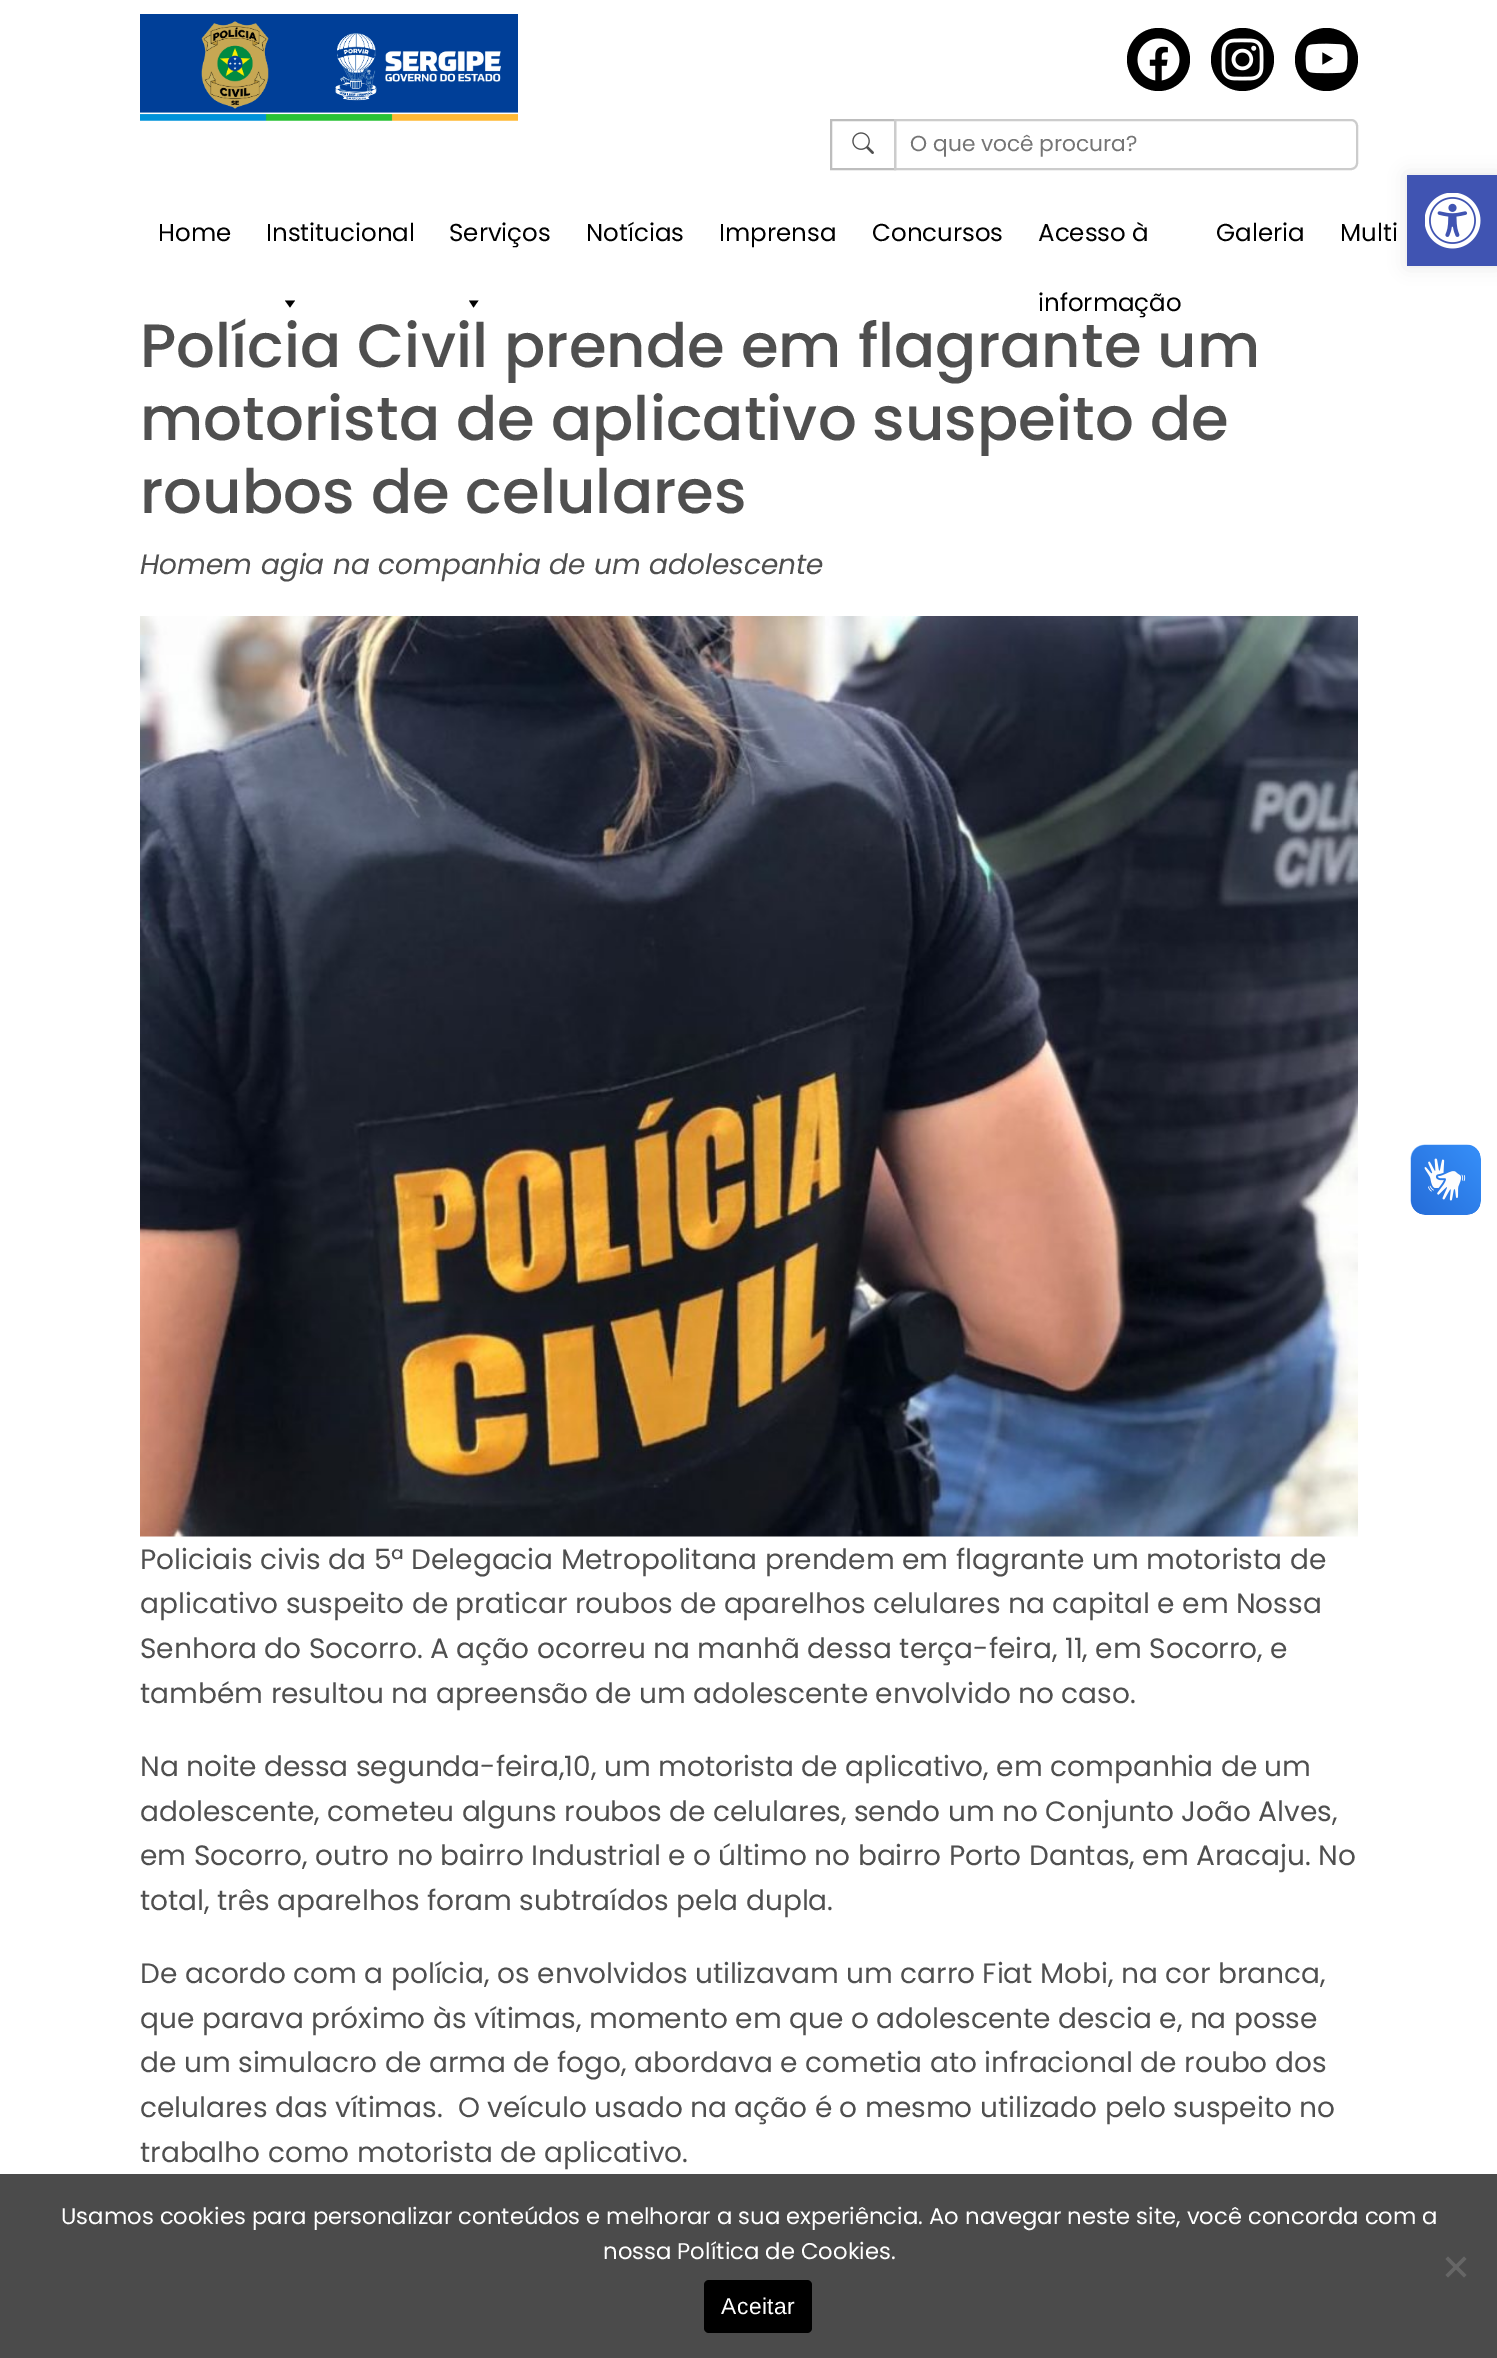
%!PS
<< /PageSize [1497 2358] /PageUsesTransparency true >> setpagedevice
/alpha { dup .setfillconstantalpha .setstrokeconstantalpha } def
/roundrect { 5 dict begin { /r /h /w /y /x } { exch def } forall
  x r add y moveto x w add y 2 copy h add r arct x w add y h add x 1 index r arct
  x y h add x y r arct x y 2 copy exch w add exch r arct closepath end } def
/shadow { 12 dict begin { /a /b /q /h /w /y /x } { exch def } forall gsave /was 0 def
  9 -2 -9 { dup b mul 4 div /e exch def 1 sub .425 mul 2.718 exch exp 1 add a .99 .min exch div /now exch def
    1 1 now sub 1 was sub div sub alpha /was now def
    w h .min e 2 mul add 0 gt { x e sub y e sub w e 2 mul add h e 2 mul add
      q e add b .6 mul add w h .min 2 div e add .min 0 .max roundrect fill } if } for grestore end } def
/picture { 5 dict begin { /h /w /y /x /name } { exch def } forall
  gsave x y translate w h scale
  w h 8 [w 0 0 h 0 0] name (r) file false 3 colorimage grestore end } def
0 .pushpdf14devicefilter
0 2358 translate 1 -1 scale
4 setmiterlimit
1 setgray
0 0 1497 2358 rectfill
(img1.rgb) 140 14 378 107 picture
0 setgray
newpath 1158.5 59.5 31.5 0 360 arc closepath fill
(img2.rgb) 1137 38 43 43 picture
newpath 1242.5 59.5 31.5 0 360 arc closepath fill
(img3.rgb) 1221 38 43 43 picture
newpath 1326.5 59.5 31.5 0 360 arc closepath fill
(img4.rgb) 1305 43 43 31 picture
0.741 setgray
2 setlinewidth
831 120 64 49 rectstroke
(img5.rgb) 852 132 22 22 picture
0.8 setgray
newpath 895 120 moveto 1351 120 lineto 1354.5 120 1357 122.5 1357 126 curveto 1357 163 lineto 1357 166.5 1354.5 169 1351 169 curveto 895 169 lineto closepath stroke
/Poppins-Regular [21.75 0 0 -21.75 0 0] selectfont
0.459 setgray
910 151 moveto (O que você procura?) show
/Poppins-Regular [24.5 0 0 -24.5 0 0] selectfont
0 setgray
158 241 moveto (Home) show
266 241 moveto (Institucional) show
newpath 295 300.5 moveto 290 307.5 lineto 285 300.5 lineto closepath fill
449 241 moveto (Serviços) show
newpath 478.5 300.5 moveto 473.5 307.5 lineto 469 300.5 lineto closepath fill
586 241 moveto (Notícias) show
719 241 moveto (Imprensa) show
872 241 moveto (Concursos) show
1038 241 moveto (Acesso à) show
1038 311 moveto (informação) show
1216 241 moveto (Galeria) show
1340 241 moveto (Multi) show
/Poppins-Medium [61 0 0 -61 0 0] selectfont
0.31 setgray
140 367 moveto (Polícia Civil prende em flagrante um) show
140 440 moveto (motorista de aplicativo suspeito de) show
140 513 moveto (roubos de celulares) show
/Poppins-Italic [28 0 0 -28 0 0] selectfont
140 574 moveto (Homem agia na companhia de um adolescente) show
(img6.rgb) 140 616 1218 921 picture
/Poppins-Regular [28 0 0 -28 0 0] selectfont
140 1569 moveto (Policiais civis da 5ª Delegacia Metropolitana prendem em flagrante um motorista de) show
140 1613 moveto (aplicativo suspeito de praticar roubos de aparelhos celulares na capital e em Nossa) show
140 1658 moveto (Senhora do Socorro. A ação ocorreu na manhã dessa terça-feira, 11, em Socorro, e) show
140 1703 moveto (também resultou na apreensão de um adolescente envolvido no caso.) show
140 1776 moveto (Na noite dessa segunda-feira,10, um motorista de aplicativo, em companhia de um) show
140 1821 moveto (adolescente, cometeu alguns roubos de celulares, sendo um no Conjunto João Alves,) show
140 1865 moveto (em Socorro, outro no bairro Industrial e o último no bairro Porto Dantas, em Aracaju. No) show
140 1910 moveto (total, três aparelhos foram subtraídos pela dupla.) show
140 1983 moveto (De acordo com a polícia, os envolvidos utilizavam um carro Fiat Mobi, na cor branca,) show
140 2028 moveto (que parava próximo às vítimas, momento em que o adolescente descia e, na posse) show
140 2072 moveto (de um simulacro de arma de fogo, abordava e cometia ato infracional de roubo dos) show
140 2117 moveto (celulares das vítimas.  O veículo usado na ação é o mesmo utilizado pelo suspeito no) show
140 2162 moveto (trabalho como motorista de aplicativo.) show
0 setgray
1407 175 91 91 0 9 0.1 shadow
0.251 0.329 0.698 setrgbcolor
1407 175 90 91 rectfill
(img7.rgb) 1425 193 56 56 picture
(img8.rgb) 1410 1144 71 71 picture
(img9.rgb) 1411 1145 70 70 picture
0.294 setgray
0 2174 1497 184 rectfill
/Poppins-Regular [22.75 0 0 -22.75 0 0] selectfont
1 setgray
61 2224 moveto (Usamos cookies para personalizar conteúdos e melhorar a sua experiência. Ao navegar neste site, você concorda com a) show
603 2259 moveto (nossa Política de Cookies.) show
0.4 setgray
newpath 1464 2256.5 moveto 1466.5 2259 lineto 1448 2277.5 lineto 1445.5 2275 lineto closepath fill
newpath 1445.5 2259 moveto 1448 2256.5 lineto 1466.5 2275 lineto 1464 2277.5 lineto closepath fill
0 setgray
704 2280 108 53 5 roundrect fill
/LiberationSans-Regular [22.75 0 0 -22.75 0 0] selectfont
1 setgray
721 2314 moveto 0.5 0 (Aceitar) ashow
.poppdf14devicefilter showpage
